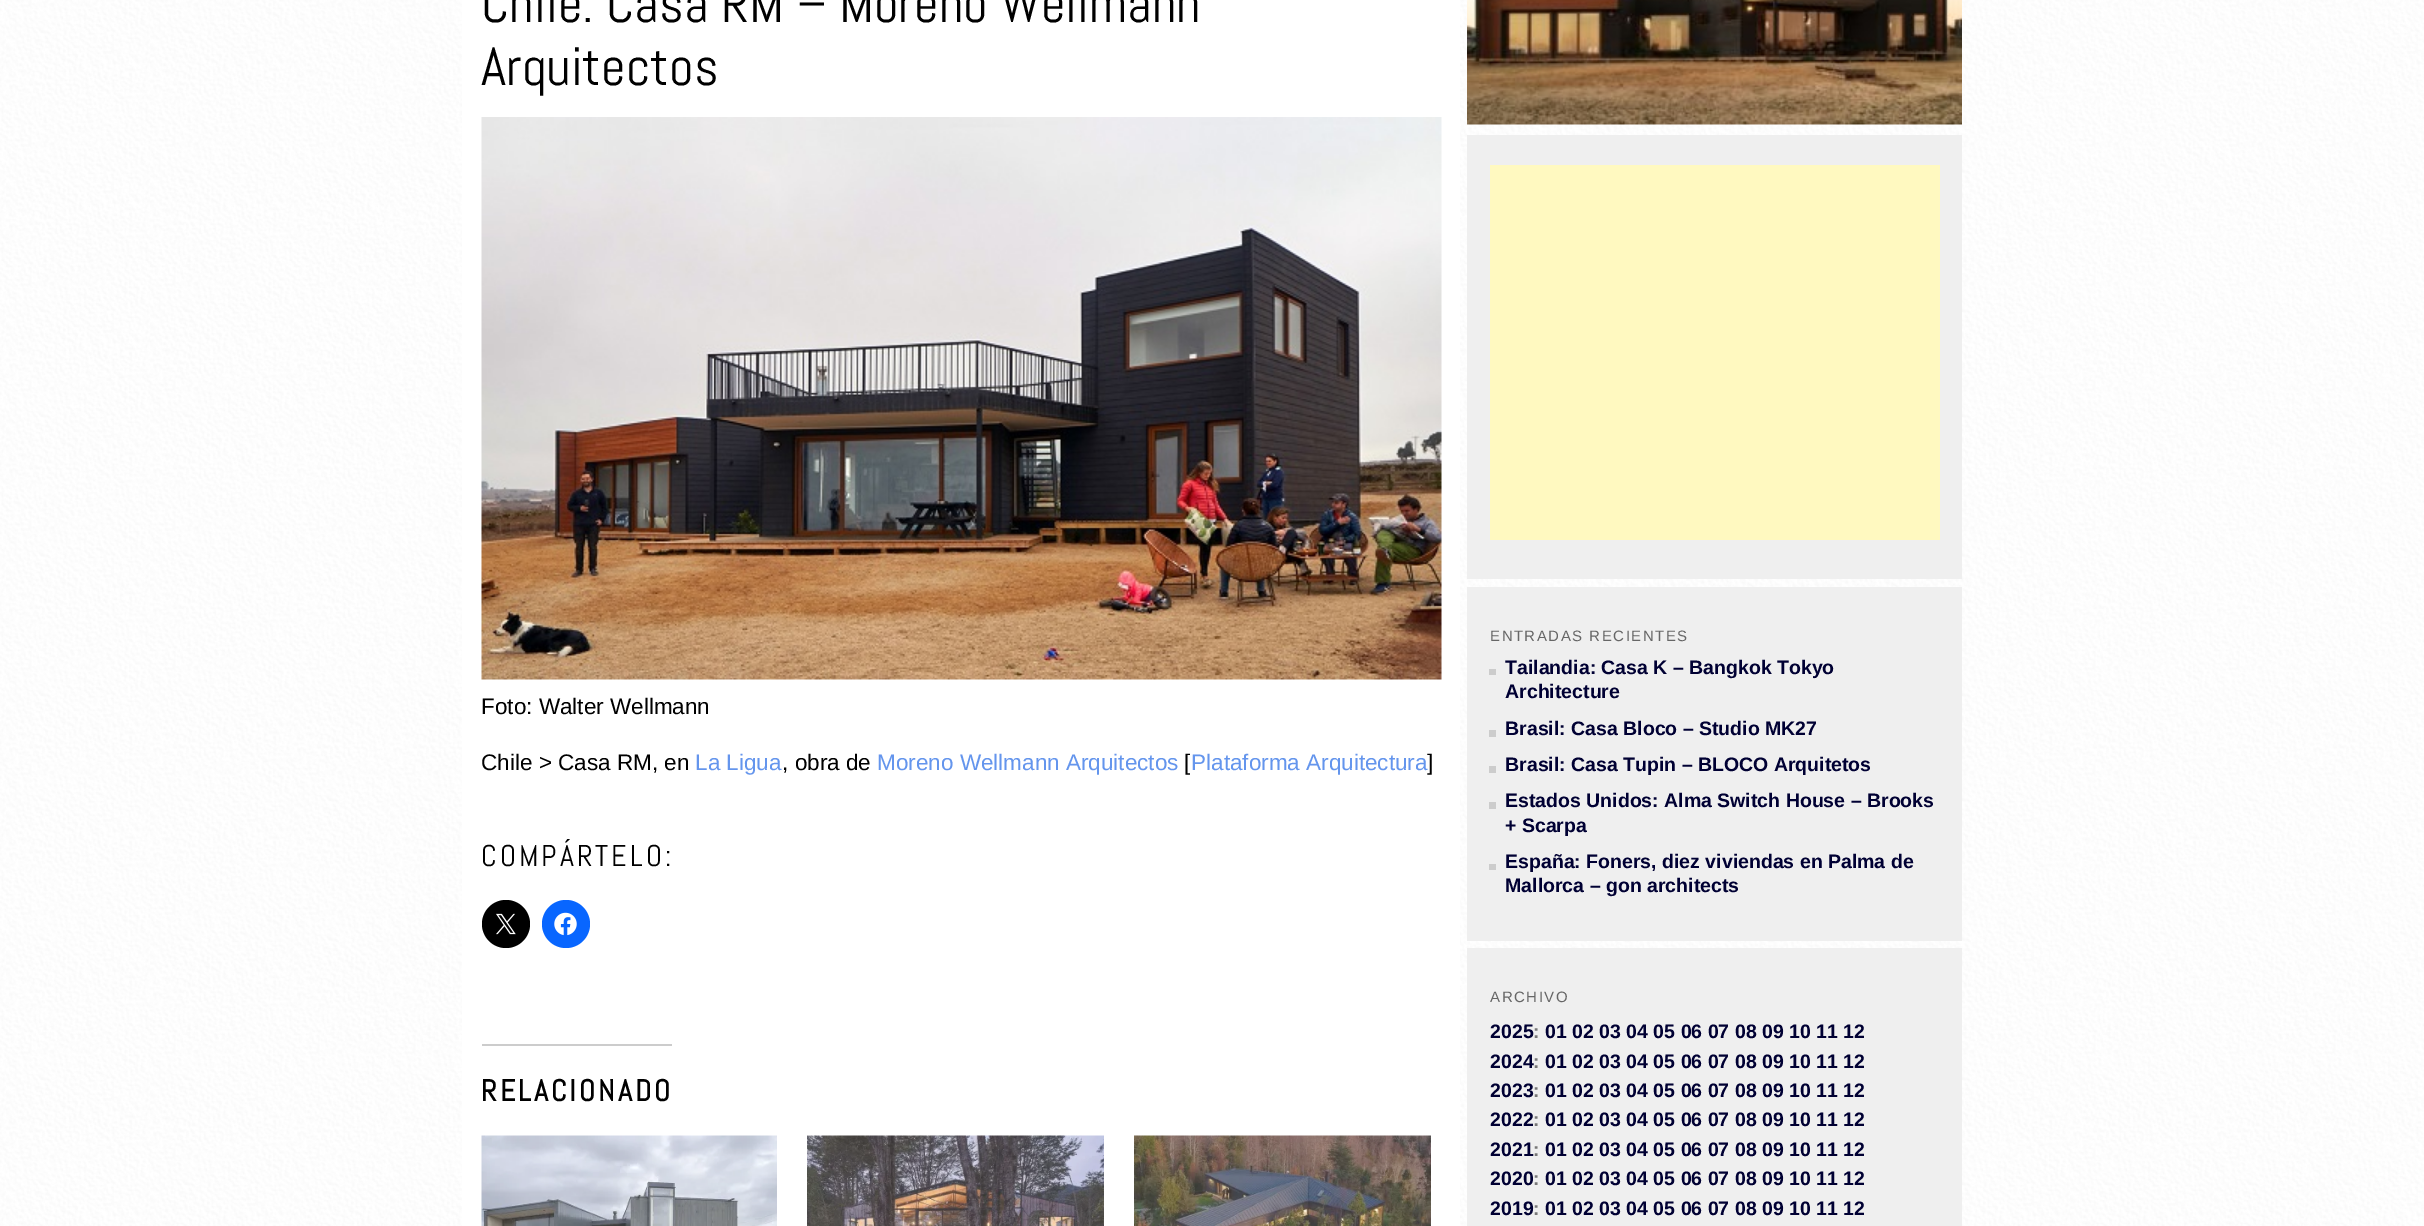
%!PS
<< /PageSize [2424 1226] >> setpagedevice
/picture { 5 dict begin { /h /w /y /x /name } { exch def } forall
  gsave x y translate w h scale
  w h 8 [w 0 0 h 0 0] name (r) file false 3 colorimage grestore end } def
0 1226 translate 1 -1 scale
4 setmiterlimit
1 setgray
0 0 2424 1226 rectfill
(img1.rgb) 0 0 2424 1226 picture
462 0 998 1226 rectfill
/Abel-Regular [54 0 0 -54 0 0] selectfont
0 setgray
481 22 moveto (Chile: Casa RM – Moreno Wellmann) show
481 85 moveto (Arquitectos) show
(img2.rgb) 481 117 961 563 picture
/LiberationSans-Regular [22.5 0 0 -22.5 0 0] selectfont
481 714 moveto (Foto: Walter Wellmann) show
481 770 moveto (Chile > Casa RM, en) show
0.392 0.584 0.929 setrgbcolor
695 770 moveto (La Ligua) show
0 setgray
782 770 moveto (, obra de) show
0.392 0.584 0.929 setrgbcolor
877 770 moveto (Moreno Wellmann Arquitectos) show
0 setgray
1184 770 moveto ([) show
0.392 0.584 0.929 setrgbcolor
1191 770 moveto (Plataforma Arquitectura) show
0 setgray
1427 770 moveto (]) show
/Abel-Regular [30 0 0 -30 0 0] selectfont
481 866 moveto 3 0 (COMPÁRTELO:) ashow
newpath 506 924 24 0 360 arc closepath fill
(img3.rgb) 496 913 20 22 picture
0.031 0.4 1 setrgbcolor
newpath 566 924 24 0 360 arc closepath fill
(img4.rgb) 554 912 23 24 picture
0.8 setgray
482 1044 190 2 rectfill
/Abel-Bold [30 0 0 -30 0 0] selectfont
0 setgray
481 1101 moveto 3 0 (RELACIONADO) ashow
(img5.rgb) 481 1135 296 91 picture
(img6.rgb) 807 1135 297 91 picture
(img7.rgb) 1134 1135 297 91 picture
(img8.rgb) 1467 0 495 125 picture
0.937 setgray
1467 135 495 444 rectfill
1 0.976 0.753 setrgbcolor
1490 165 450 375 rectfill
0.937 setgray
1467 587 495 354 rectfill
/LiberationSans-Regular [15 0 0 -15 0 0] selectfont
0.4 setgray
1490 641 moveto 1.5 0 (ENTRADAS RECIENTES) ashow
0.8 setgray
1489 669 7 6 rectfill
/LiberationSans-Bold [19.5 0 0 -19.5 0 0] selectfont
0 0 0.2 setrgbcolor
1505 674 moveto (Tailandia: Casa K – Bangkok Tokyo) show
1505 698 moveto (Architecture) show
0.8 setgray
1489 730 7 7 rectfill
0 0 0.2 setrgbcolor
1505 735 moveto (Brasil: Casa Bloco – Studio MK27) show
0.8 setgray
1489 766 7 7 rectfill
0 0 0.2 setrgbcolor
1505 771 moveto (Brasil: Casa Tupin – BLOCO Arquitetos) show
0.8 setgray
1489 802 7 7 rectfill
0 0 0.2 setrgbcolor
1505 807 moveto (Estados Unidos: Alma Switch House – Brooks) show
1505 832 moveto (+ Scarpa) show
0.8 setgray
1489 864 7 6 rectfill
0 0 0.2 setrgbcolor
1505 868 moveto (España: Foners, diez viviendas en Palma de) show
1505 892 moveto (Mallorca – gon architects) show
0.937 setgray
1467 948 495 278 rectfill
/LiberationSans-Regular [15 0 0 -15 0 0] selectfont
0.4 setgray
1490 1002 moveto 1.5 0 (ARCHIVO) ashow
/LiberationSans-Bold [19.5 0 0 -19.5 0 0] selectfont
0 0 0.2 setrgbcolor
1490 1038 moveto (2025) show
0.467 setgray
1533 1038 moveto (:) show
0 0 0.2 setrgbcolor
1545 1038 moveto (01 02 03 04 05 06 07 08 09 10 11 12) show
1490 1068 moveto (2024) show
0.467 setgray
1533 1068 moveto (:) show
0 0 0.2 setrgbcolor
1545 1068 moveto (01 02 03 04 05 06 07 08 09 10 11 12) show
1490 1097 moveto (2023) show
0.467 setgray
1533 1097 moveto (:) show
0 0 0.2 setrgbcolor
1545 1097 moveto (01 02 03 04 05 06 07 08 09 10 11 12) show
1490 1126 moveto (2022) show
0.467 setgray
1533 1126 moveto (:) show
0 0 0.2 setrgbcolor
1545 1126 moveto (01 02 03 04 05 06 07 08 09 10 11 12) show
1490 1156 moveto (2021) show
0.467 setgray
1533 1156 moveto (:) show
0 0 0.2 setrgbcolor
1545 1156 moveto (01 02 03 04 05 06 07 08 09 10 11 12) show
1490 1185 moveto (2020) show
0.467 setgray
1533 1185 moveto (:) show
0 0 0.2 setrgbcolor
1545 1185 moveto (01 02 03 04 05 06 07 08 09 10 11 12) show
1490 1215 moveto (2019) show
0.467 setgray
1533 1215 moveto (:) show
0 0 0.2 setrgbcolor
1545 1215 moveto (01 02 03 04 05 06 07 08 09 10 11 12) show
showpage
